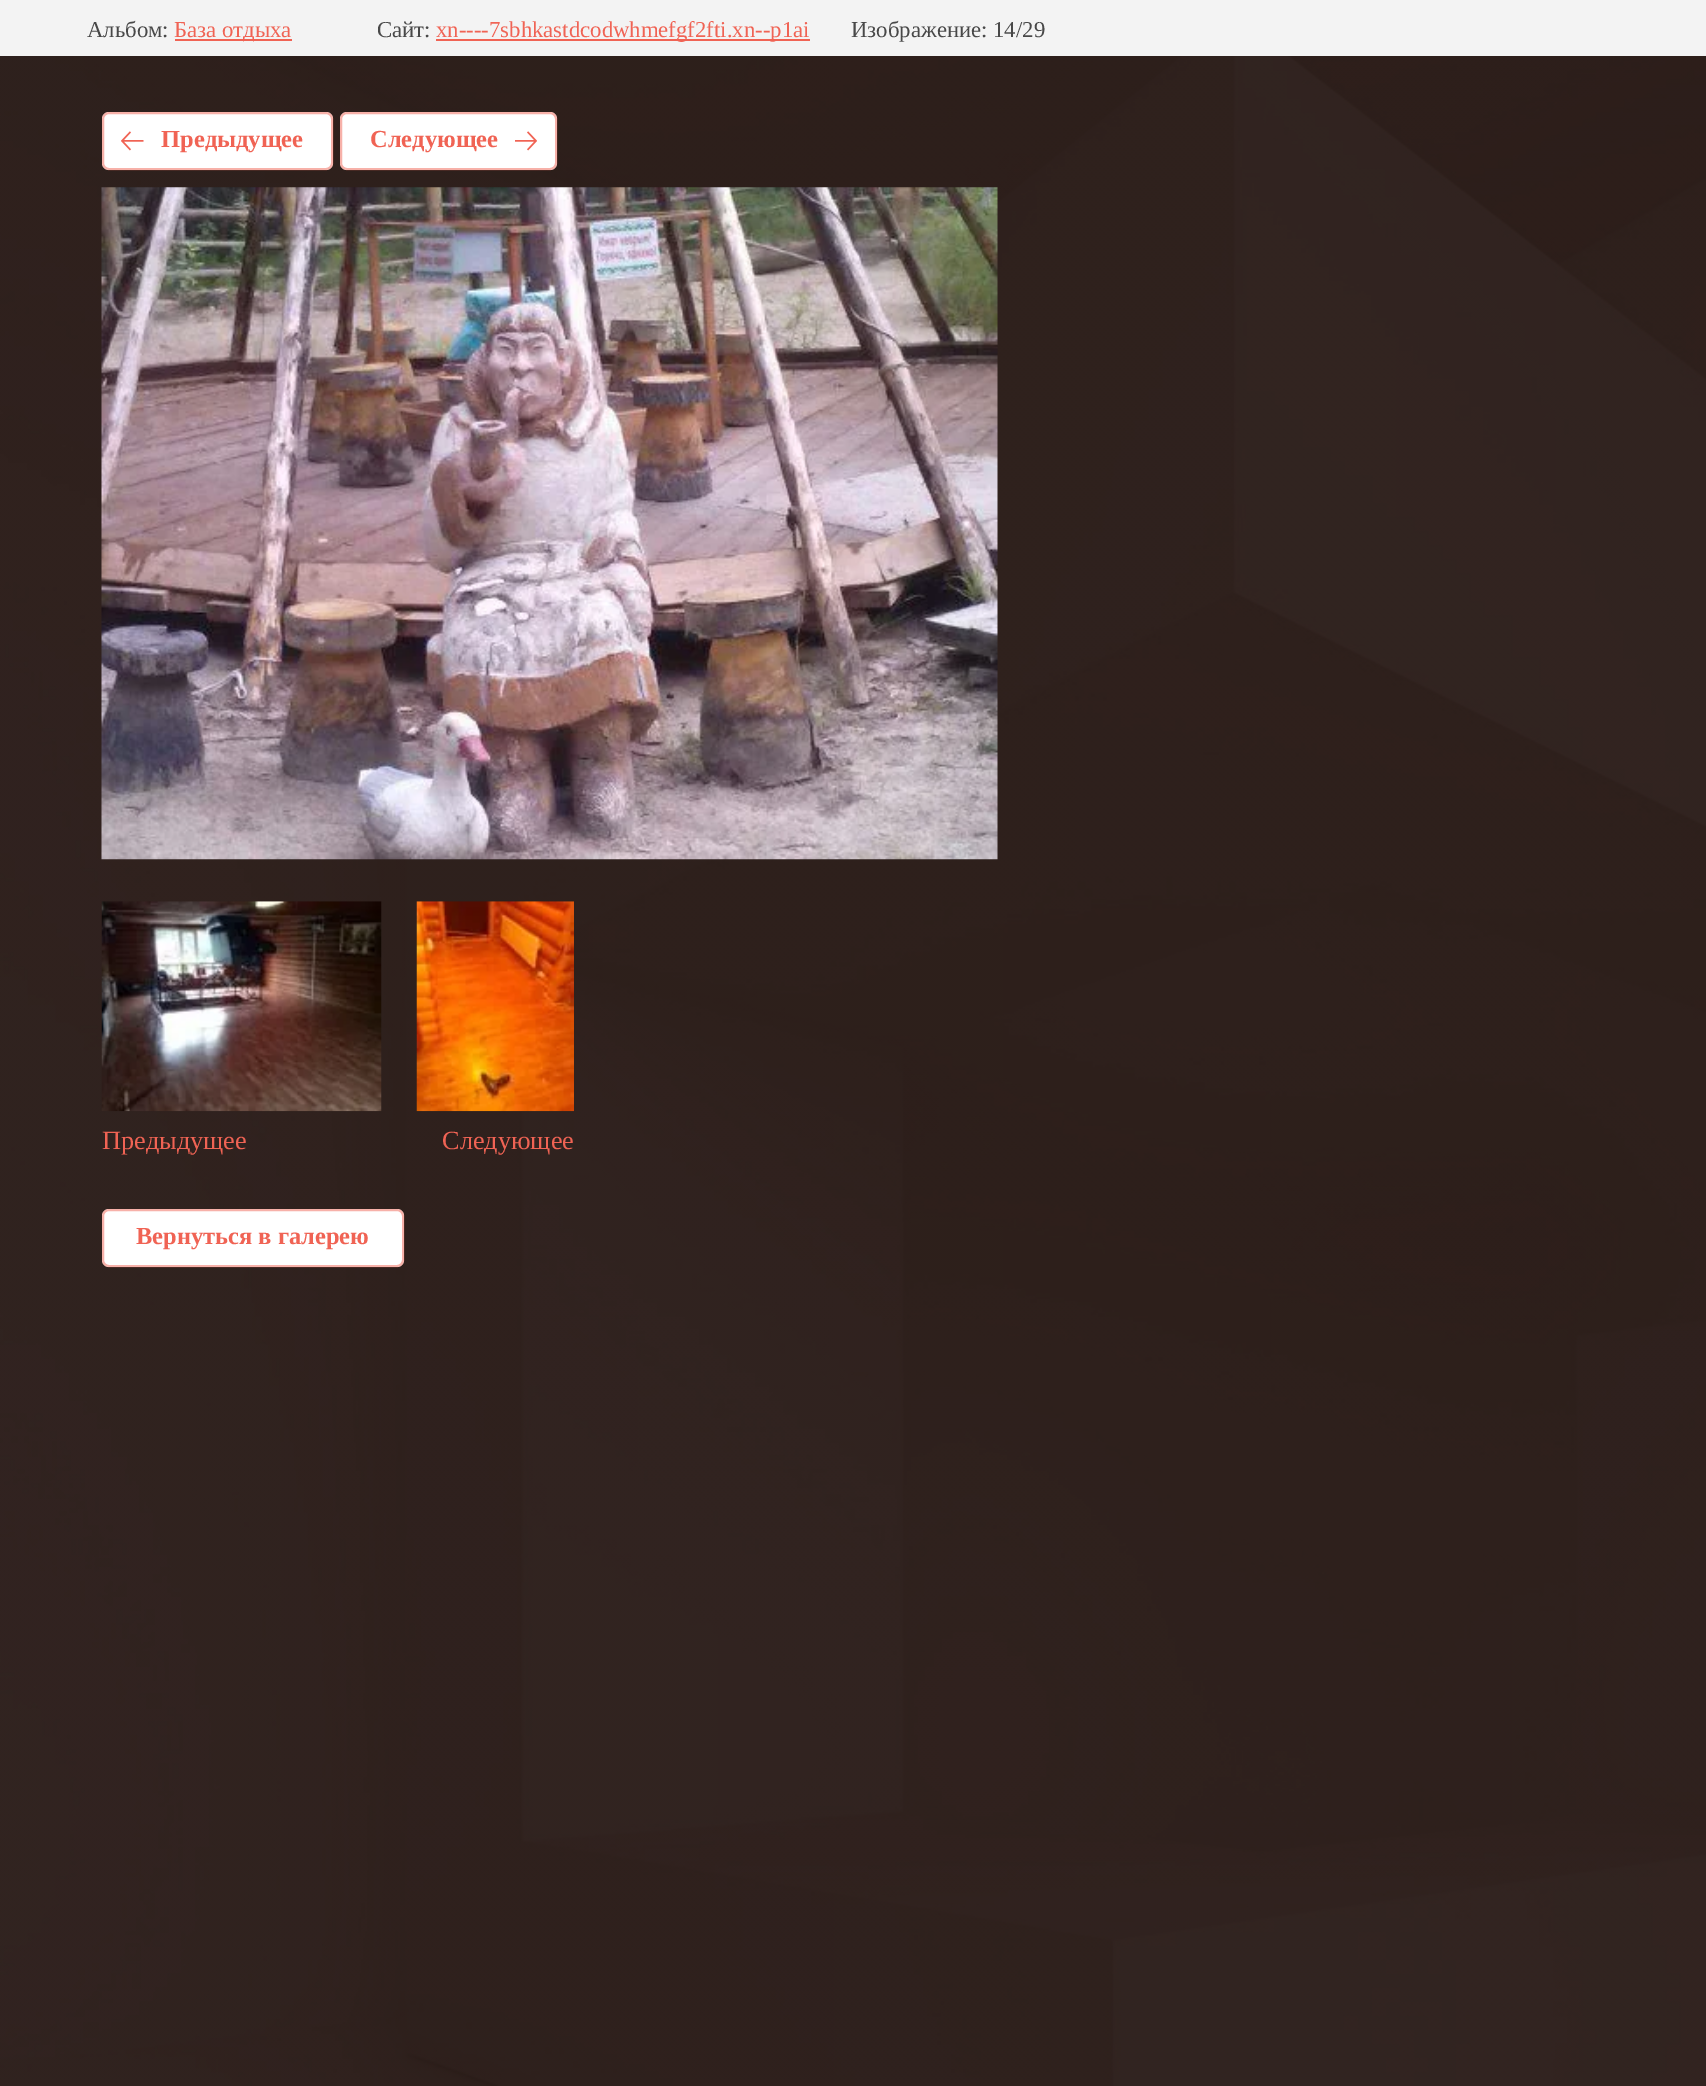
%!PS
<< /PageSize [1706 2086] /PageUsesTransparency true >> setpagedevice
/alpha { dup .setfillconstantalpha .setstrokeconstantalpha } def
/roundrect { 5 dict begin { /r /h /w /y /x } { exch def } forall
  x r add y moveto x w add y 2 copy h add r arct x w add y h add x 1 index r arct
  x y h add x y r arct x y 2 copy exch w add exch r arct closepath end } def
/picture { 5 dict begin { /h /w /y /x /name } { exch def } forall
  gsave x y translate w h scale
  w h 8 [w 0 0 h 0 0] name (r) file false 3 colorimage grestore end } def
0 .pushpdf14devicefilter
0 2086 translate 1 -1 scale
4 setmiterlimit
1 setgray
0 0 1706 2086 rectfill
(img1.rgb) 0 56 1706 2030 picture
0.953 setgray
0 0 1706 56 rectfill
/LiberationSerif-Regular [22.75 0 0 -22.75 0 0] selectfont
0.282 setgray
87 37 moveto (Альбом:) show
0.941 0.388 0.329 setrgbcolor
175 39 117 2 rectfill
174 37 moveto (База отдыха) show
0.282 setgray
377 37 moveto (Сайт:) show
0.941 0.388 0.329 setrgbcolor
436 39 374 2 rectfill
436 37 moveto (xn----7sbhkastdcodwhmefgf2fti.xn--p1ai) show
0.282 setgray
851 37 moveto (Изображение: 14/29) show
1 setgray
102 112 231 58 7 roundrect fill
0.5 alpha
0.941 0.388 0.329 setrgbcolor
2 setlinewidth
103 113 229 56 6 roundrect stroke
1 alpha
(img2.rgb) 121 131 23 20 picture
/LiberationSerif-Bold [24.5 0 0 -24.5 0 0] selectfont
161 147 moveto (Предыдущее) show
1 setgray
340 112 217 58 7 roundrect fill
0.5 alpha
0.941 0.388 0.329 setrgbcolor
341 113 215 56 6 roundrect stroke
1 alpha
370 147 moveto (Следующее) show
(img3.rgb) 515 131 22 20 picture
(img4.rgb) 101 187 897 673 picture
(img5.rgb) 101 901 281 211 picture
/LiberationSerif-Regular [26.25 0 0 -26.25 0 0] selectfont
102 1149 moveto (Предыдущее) show
(img6.rgb) 416 901 158 211 picture
442 1149 moveto (Следующее) show
1 setgray
102 1209 302 58 7 roundrect fill
0.5 alpha
0.941 0.388 0.329 setrgbcolor
103 1210 300 56 6 roundrect stroke
/LiberationSerif-Bold [24.5 0 0 -24.5 0 0] selectfont
1 alpha
136 1244 moveto (Вернуться в галерею) show
.poppdf14devicefilter showpage
